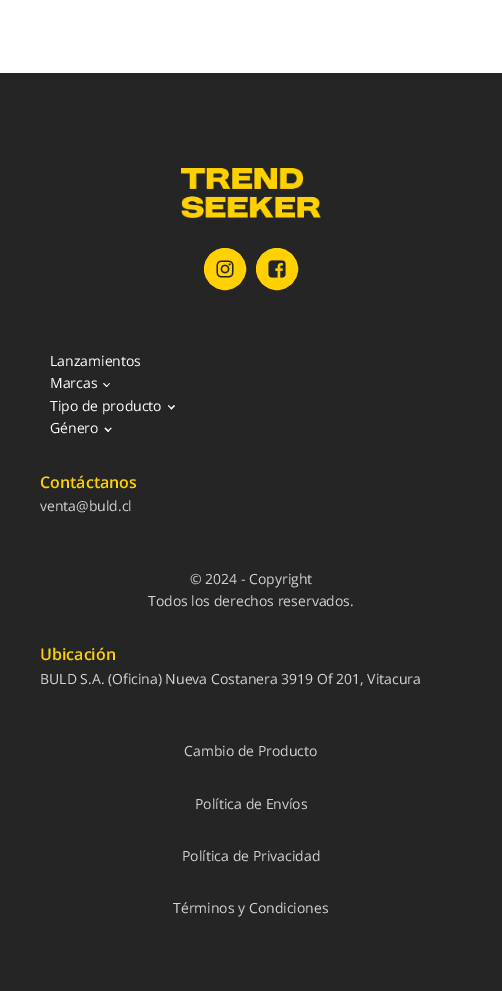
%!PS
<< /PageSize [502 991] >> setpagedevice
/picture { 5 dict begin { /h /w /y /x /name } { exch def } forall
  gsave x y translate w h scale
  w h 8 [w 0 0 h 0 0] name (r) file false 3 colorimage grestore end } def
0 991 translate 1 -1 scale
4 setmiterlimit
1 setgray
0 0 502 991 rectfill
0.145 setgray
0 73 502 918 rectfill
(img1.rgb) 181 168 140 50 picture
1 0.82 0 setrgbcolor
newpath 225 269 20.5 0 360 arc closepath gsave fill grestore
stroke
(img2.rgb) 216 260 18 18 picture
newpath 277 269 20.5 0 360 arc closepath gsave fill grestore
stroke
(img3.rgb) 268 260 18 18 picture
/OpenSans-Regular [14 0 0 -14 0 0] selectfont
1 setgray
50 366 moveto (Lanzamientos) show
50 388 moveto (Marcas) show
newpath 110 383.5 moveto 106.5 387 lineto 106 386.5 lineto 109.5 383 lineto closepath fill
newpath 107.5 386.5 moveto 106.5 387 lineto 103 383.5 lineto 104 383 lineto closepath fill
50 411 moveto (Tipo de producto) show
newpath 175 406 moveto 171.5 409.5 lineto 170.5 408.5 lineto 174 405 lineto closepath fill
newpath 172 408.5 moveto 171.5 409.5 lineto 168 406 lineto 168.5 405 lineto closepath fill
50 433 moveto (Género) show
newpath 111.5 428.5 moveto 108 432 lineto 107.5 431 lineto 111 427.5 lineto closepath fill
newpath 109 431 moveto 108 432 lineto 104.5 428.5 lineto 105.5 427.5 lineto closepath fill
/OpenSans-SemiBold [16 0 0 -16 0 0] selectfont
1 0.82 0 setrgbcolor
40 488 moveto (Contáctanos) show
/OpenSans-Regular [14 0 0 -14 0 0] selectfont
0.827 setgray
40 511 moveto (venta@buld.cl) show
190 584 moveto (© 2024 - Copyright) show
148 606 moveto (Todos los derechos reservados.) show
/OpenSans-SemiBold [16 0 0 -16 0 0] selectfont
1 0.82 0 setrgbcolor
40 660 moveto (Ubicación) show
/OpenSans-Regular [14 0 0 -14 0 0] selectfont
0.827 setgray
40 684 moveto (BULD S.A. \(Oficina\) Nueva Costanera 3919 Of 201, Vitacura) show
184 756 moveto (Cambio de Producto) show
195 809 moveto (Política de Envíos) show
182 861 moveto (Política de Privacidad) show
173 913 moveto (Términos y Condiciones) show
showpage
